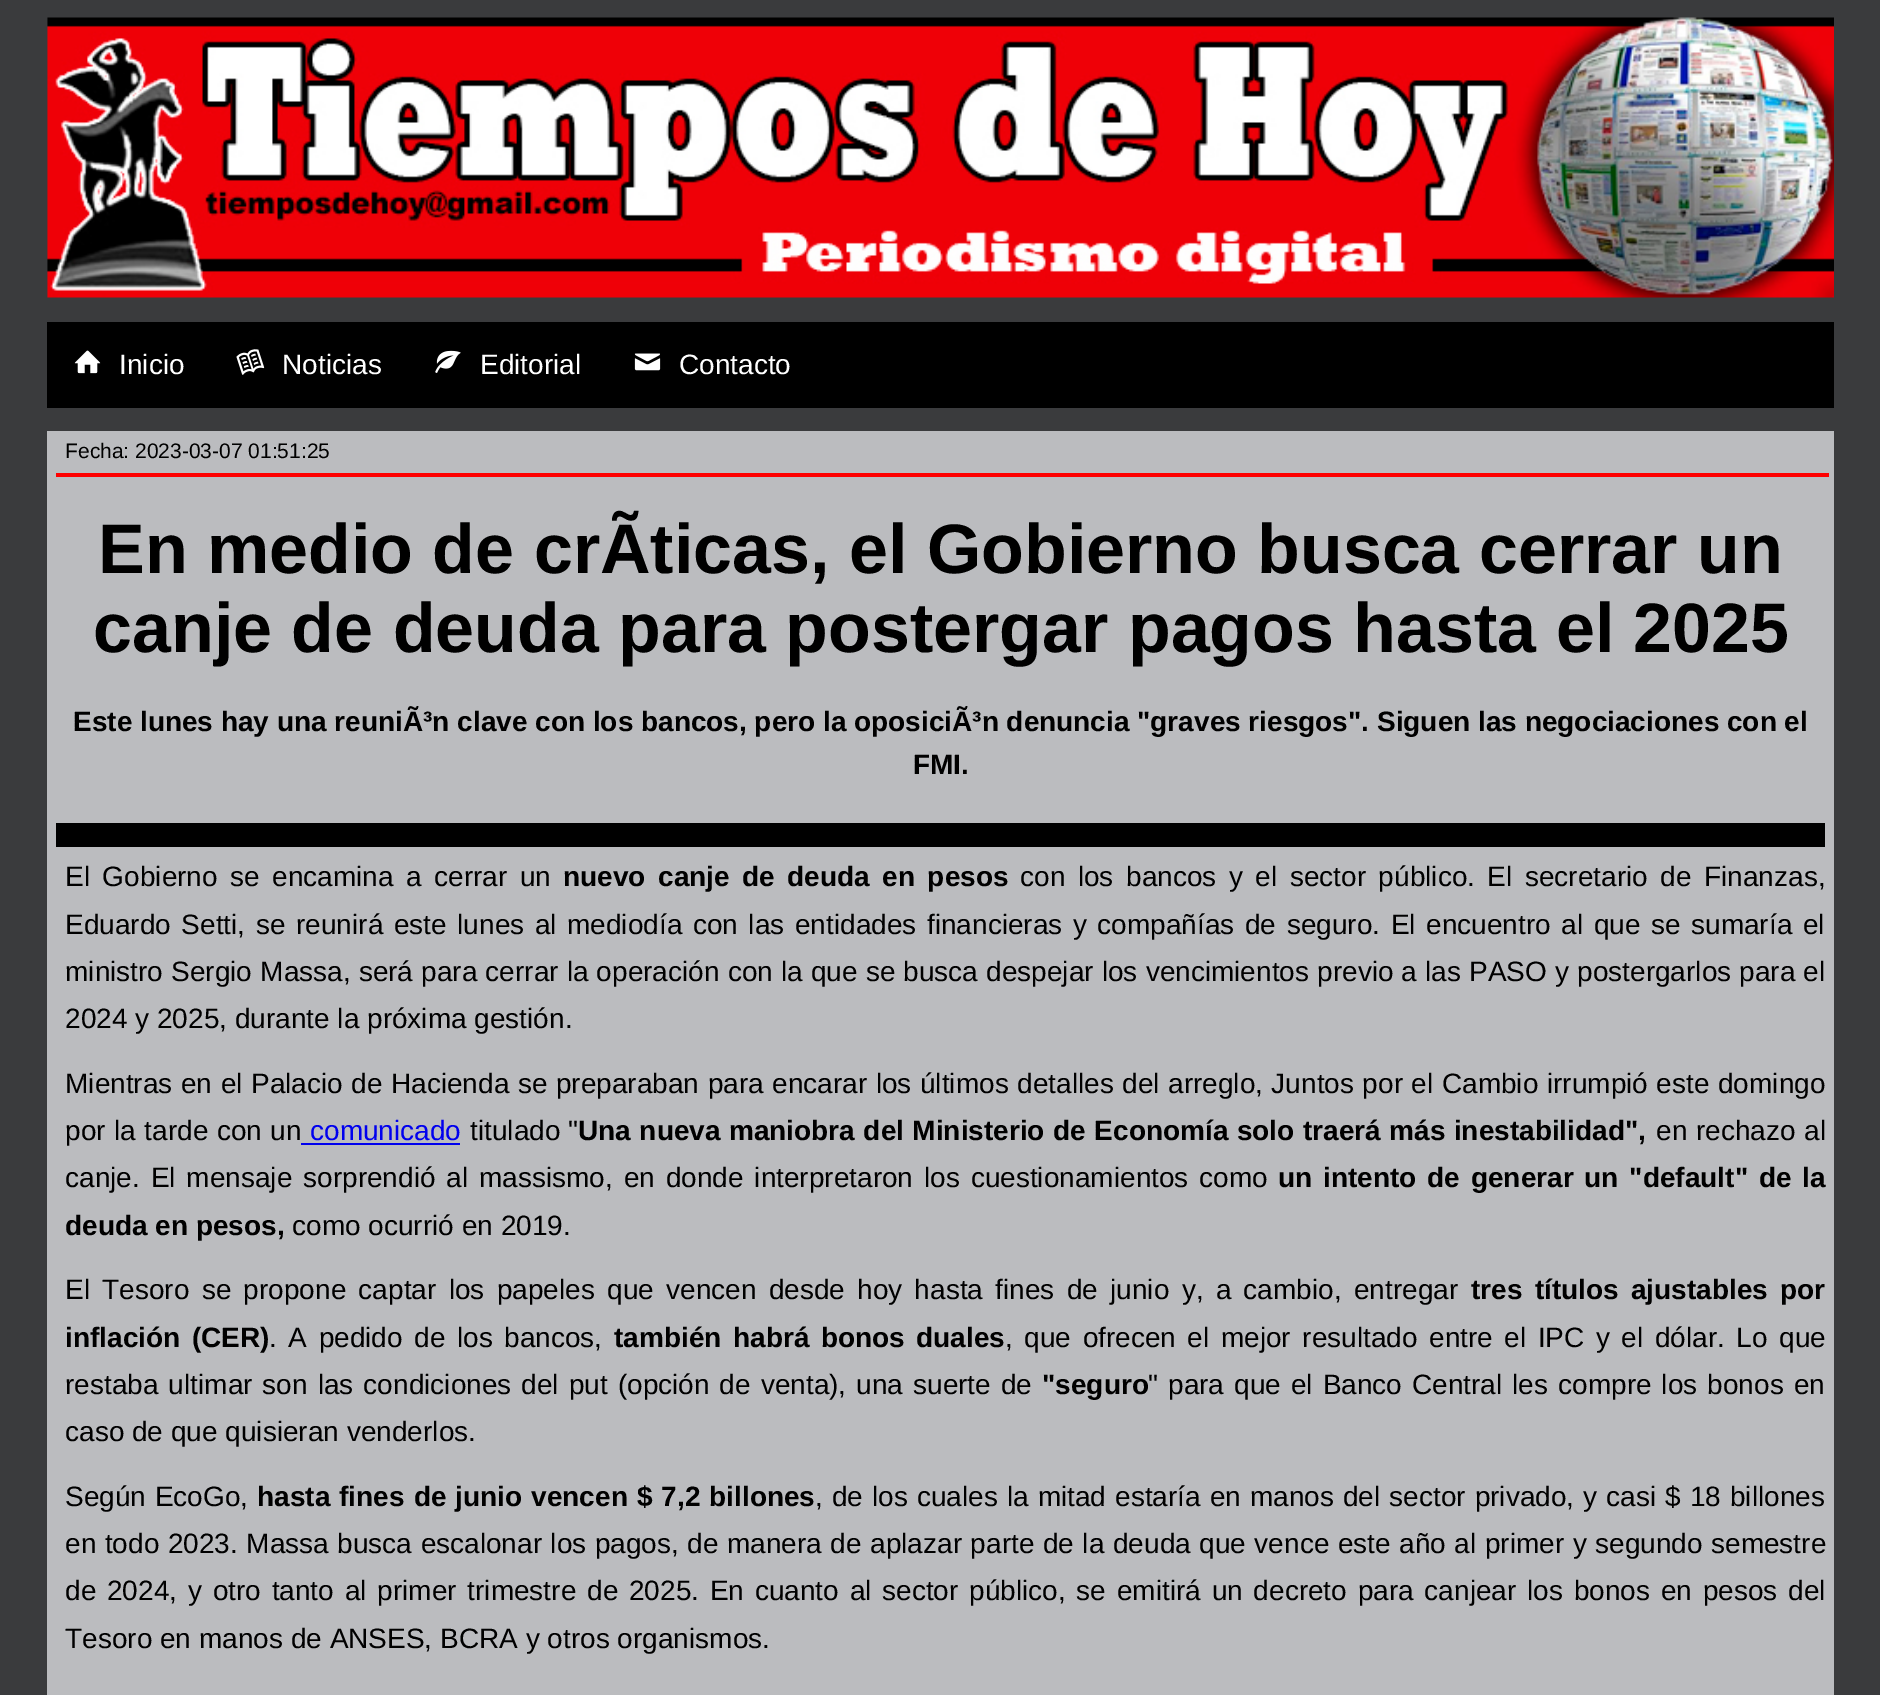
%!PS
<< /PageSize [1880 1695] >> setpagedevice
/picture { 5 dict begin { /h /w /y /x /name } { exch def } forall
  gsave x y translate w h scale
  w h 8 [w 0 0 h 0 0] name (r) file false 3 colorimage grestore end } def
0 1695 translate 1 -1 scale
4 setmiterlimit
0.227 0.231 0.239 setrgbcolor
0 0 1880 1695 rectfill
(img1.rgb) 47 17 1787 281 picture
0 setgray
47 322 1787 86 rectfill
(img2.rgb) 74 350 27 24 picture
/LiberationSans-Regular [28 0 0 -28 0 0] selectfont
1 setgray
119 374 moveto (Inicio) show
(img3.rgb) 236 349 29 26 picture
282 374 moveto (Noticias) show
(img4.rgb) 435 350 26 23 picture
480 374 moveto (Editorial) show
(img5.rgb) 634 353 27 18 picture
679 374 moveto (Contacto) show
0.733 0.737 0.749 setrgbcolor
47 431 1787 1264 rectfill
/LiberationSans-Regular [21 0 0 -21 0 0] selectfont
0 setgray
65 458 moveto (Fecha: 2023-03-07 01:51:25) show
0.996 0 0 setrgbcolor
56 473 1773 4 rectfill
/LiberationSans-Bold [70 0 0 -70 0 0] selectfont
0 setgray
98 573 moveto (En medio de crÃticas, el Gobierno busca cerrar un) show
93 652 moveto (canje de deuda para postergar pagos hasta el 2025) show
/LiberationSans-Bold [28 0 0 -28 0 0] selectfont
73 731 moveto (Este lunes hay una reuniÃ³n clave con los bancos, pero la oposiciÃ³n denuncia "graves riesgos". Siguen las negociaciones con el) show
913 774 moveto (FMI.) show
56 823 1769 24 rectfill
/LiberationSans-Regular [28 0 0 -28 0 0] selectfont
65 886 moveto 4.75 0 32 (El Gobierno se encamina a cerrar un) widthshow
/LiberationSans-Bold [28 0 0 -28 0 0] selectfont
563 886 moveto 4.75 0 32 (nuevo canje de deuda en pesos) widthshow
/LiberationSans-Regular [28 0 0 -28 0 0] selectfont
1020 886 moveto 4.75 0 32 (con los bancos y el sector público. El secretario de Finanzas,) widthshow
65 934 moveto 2.8 0 32 (Eduardo Setti, se reunirá este lunes al mediodía con las entidades financieras y compañías de seguro. El encuentro al que se sumaría el) widthshow
65 981 moveto 0.35 0 32 (ministro Sergio Massa, será para cerrar la operación con la que se busca despejar los vencimientos previo a las PASO y postergarlos para el) widthshow
65 1028 moveto (2024 y 2025, durante la próxima gestión.) show
65 1093 moveto 0.75 0 32 (Mientras en el Palacio de Hacienda se preparaban para encarar los últimos detalles del arreglo, Juntos por el Cambio irrumpió este domingo) widthshow
65 1140 moveto 0.75 0 32 (por la tarde con un) widthshow
0 0 0.933 setrgbcolor
301 1143 159 2 rectfill
310 1140 moveto (comunicado) show
0 setgray
470 1140 moveto (titulado ") show
/LiberationSans-Bold [28 0 0 -28 0 0] selectfont
578 1140 moveto 0.75 0 32 (Una nueva maniobra del Ministerio de Economía solo traerá más inestabilidad",) widthshow
/LiberationSans-Regular [28 0 0 -28 0 0] selectfont
1656 1140 moveto 1 0 32 (en rechazo al) widthshow
65 1187 moveto 3.1 0 32 (canje. El mensaje sorprendió al massismo, en donde interpretaron los cuestionamientos como) widthshow
/LiberationSans-Bold [28 0 0 -28 0 0] selectfont
1278 1187 moveto 3.1 0 32 (un intento de generar un "default" de la) widthshow
65 1235 moveto (deuda en pesos,) show
/LiberationSans-Regular [28 0 0 -28 0 0] selectfont
292 1235 moveto (como ocurrió en 2019.) show
65 1299 moveto 4.5 0 32 (El Tesoro se propone captar los papeles que vencen desde hoy hasta fines de junio y, a cambio, entregar) widthshow
/LiberationSans-Bold [28 0 0 -28 0 0] selectfont
1471 1299 moveto 4.5 0 32 (tres títulos ajustables por) widthshow
65 1347 moveto 4 0 32 (inflación \(CER\)) widthshow
/LiberationSans-Regular [28 0 0 -28 0 0] selectfont
269 1347 moveto 3.75 0 32 (. A pedido de los bancos,) widthshow
/LiberationSans-Bold [28 0 0 -28 0 0] selectfont
614 1347 moveto 3.75 0 32 (también habrá bonos duales) widthshow
/LiberationSans-Regular [28 0 0 -28 0 0] selectfont
1005 1347 moveto 3.75 0 32 (, que ofrecen el mejor resultado entre el IPC y el dólar. Lo que) widthshow
65 1394 moveto 2.25 0 32 (restaba ultimar son las condiciones del put \(opción de venta\), una suerte de) widthshow
/LiberationSans-Bold [28 0 0 -28 0 0] selectfont
1042 1394 moveto ("seguro) show
/LiberationSans-Regular [28 0 0 -28 0 0] selectfont
1148 1394 moveto 2.25 0 32 (" para que el Banco Central les compre los bonos en) widthshow
65 1441 moveto (caso de que quisieran venderlos.) show
65 1506 moveto 1 0 32 (Según EcoGo,) widthshow
/LiberationSans-Bold [28 0 0 -28 0 0] selectfont
257 1506 moveto 1.25 0 32 (hasta fines de junio vencen $ 7,2 billones) widthshow
/LiberationSans-Regular [28 0 0 -28 0 0] selectfont
815 1506 moveto 1.25 0 32 (, de los cuales la mitad estaría en manos del sector privado, y casi $ 18 billones) widthshow
65 1553 moveto 0.75 0 32 (en todo 2023. Massa busca escalonar los pagos, de manera de aplazar parte de la deuda que vence este año al primer y segundo semestre) widthshow
65 1600 moveto 3 0 32 (de 2024, y otro tanto al primer trimestre de 2025. En cuanto al sector público, se emitirá un decreto para canjear los bonos en pesos del) widthshow
65 1648 moveto (Tesoro en manos de ANSES, BCRA y otros organismos.) show
showpage
